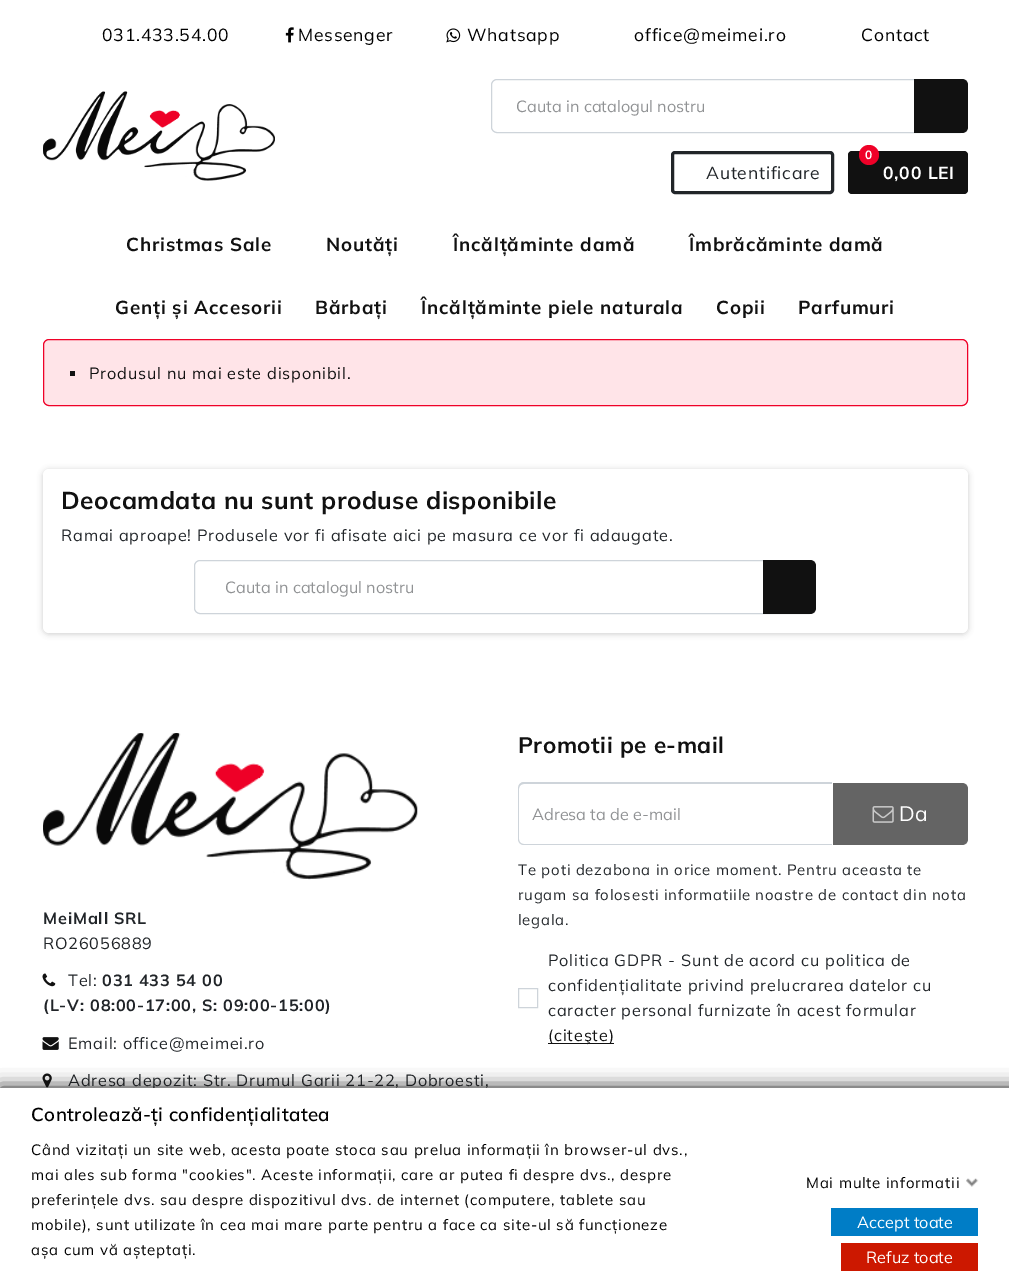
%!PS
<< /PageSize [1009 1286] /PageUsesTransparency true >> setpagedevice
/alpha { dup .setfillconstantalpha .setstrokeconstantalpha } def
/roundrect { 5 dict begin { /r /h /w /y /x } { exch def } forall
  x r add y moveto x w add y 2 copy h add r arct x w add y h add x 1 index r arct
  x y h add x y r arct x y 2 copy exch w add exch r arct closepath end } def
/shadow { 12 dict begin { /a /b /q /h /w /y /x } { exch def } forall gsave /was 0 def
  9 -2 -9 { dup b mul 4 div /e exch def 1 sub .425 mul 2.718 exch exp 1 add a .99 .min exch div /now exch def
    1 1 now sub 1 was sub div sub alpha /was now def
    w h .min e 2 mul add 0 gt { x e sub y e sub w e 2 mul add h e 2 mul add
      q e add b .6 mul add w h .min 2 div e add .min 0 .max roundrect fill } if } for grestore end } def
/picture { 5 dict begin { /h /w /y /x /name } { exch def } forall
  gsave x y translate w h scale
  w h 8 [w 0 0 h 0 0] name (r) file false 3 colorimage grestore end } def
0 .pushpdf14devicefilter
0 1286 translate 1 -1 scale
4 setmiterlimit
1 setgray
0 0 1009 1286 rectfill
/Mulish-Regular [17.5 0 0 -17.5 0 0] selectfont
0 setgray
102 41 moveto 0.8 0 (031.433.54.00) ashow
(img1.rgb) 285 27 9 16 picture
298 41 moveto 0.8 0 (Messenger) ashow
(img2.rgb) 446 28 15 15 picture
467 41 moveto 0.8 0 (Whatsapp) ashow
634 41 moveto 0.8 0 (office@meimei.ro) ashow
861 41 moveto 0.8 0 (Contact) ashow
(img3.rgb) 43 91 232 90 picture
0.808 0.831 0.855 setrgbcolor
491.5 79.5 474 53 5.5 roundrect stroke
/Mulish-Regular [16.25 0 0 -16.25 0 0] selectfont
0.565 0.573 0.58 setrgbcolor
516 112 moveto (Cauta in catalogul nostru) show
0.067 setgray
newpath 914 79 moveto 962 79 lineto 965.5 79 968 81.5 968 85 curveto 968 127 lineto 968 130.5 965.5 133 962 133 curveto 914 133 lineto closepath fill
0.129 0.145 0.161 setrgbcolor
3 setlinewidth
672.5 152.5 160 40 2.5 roundrect stroke
/Mulish-Regular [17.5 0 0 -17.5 0 0] selectfont
706 179 moveto 0.8 0 (Autentificare) ashow
0.067 setgray
848 151 120 43 4 roundrect fill
0.937 0.004 0.157 setrgbcolor
newpath 869 155 10 0 360 arc closepath fill
/Mulish-Bold [12 0 0 -12 0 0] selectfont
1 setgray
865 159 moveto 0.8 0 (0) ashow
/Mulish-Bold [17.5 0 0 -17.5 0 0] selectfont
883 179 moveto 0.8 0 (0,00 LEI) ashow
/Mulish-Bold [18.75 0 0 -18.75 0 0] selectfont
0.067 setgray
126 251 moveto 0.8 0 (Christmas Sale) ashow
326 251 moveto 0.8 0 (Noutăți) ashow
453 251 moveto 0.8 0 (Încălțăminte damă) ashow
689 251 moveto 0.8 0 (Îmbrăcăminte damă) ashow
115 314 moveto 0.8 0 (Genți și Accesorii) ashow
315 314 moveto 0.8 0 (Bărbați) ashow
421 314 moveto 0.8 0 (Încălțăminte piele naturala) ashow
716 314 moveto 0.8 0 (Copii) ashow
798 314 moveto 0.8 0 (Parfumuri) ashow
1 0.894 0.91 setrgbcolor
43.5 339.5 924 66 5.5 roundrect gsave fill grestore
0.937 0.004 0.157 setrgbcolor
1 setlinewidth
stroke
0.067 setgray
70 371 5 5 rectfill
/Mulish-Regular [16.25 0 0 -16.25 0 0] selectfont
89 379 moveto 0.8 0 (Produsul nu mai este disponibil.) ashow
0 setgray
43 470 925 164 6 3 0.2 shadow
1 setgray
43 469 925 164 6 roundrect fill
/Mulish-Bold [24.4 0 0 -24.4 0 0] selectfont
0.067 setgray
61 509 moveto 0.5 0 (Deocamdata nu sunt produse disponibile) ashow
/Mulish-Regular [16.25 0 0 -16.25 0 0] selectfont
0.129 0.145 0.161 setrgbcolor
61 541 moveto 0.8 0 (Ramai aproape! Produsele vor fi afisate aici pe masura ce vor fi adaugate.) ashow
0.808 0.831 0.855 setrgbcolor
194.5 560.5 620 53 5.5 roundrect stroke
0.565 0.573 0.58 setrgbcolor
225 593 moveto (Cauta in catalogul nostru) show
0.067 setgray
newpath 763 560 moveto 810 560 lineto 813.5 560 816 562.5 816 566 curveto 816 608 lineto 816 611.5 813.5 614 810 614 curveto 763 614 lineto closepath fill
(img4.rgb) 43 733 375 147 picture
/Mulish-Bold [16.25 0 0 -16.25 0 0] selectfont
0.129 0.145 0.161 setrgbcolor
43 924 moveto 0.8 0 (MeiMall SRL) ashow
/Mulish-Regular [16.25 0 0 -16.25 0 0] selectfont
43 949 moveto 0.8 0 (RO26056889) ashow
(img5.rgb) 42 973 14 14 picture
68 986 moveto 0.8 0 (Tel:) ashow
/Mulish-Bold [16.25 0 0 -16.25 0 0] selectfont
102 986 moveto 0.8 0 (031 433 54 00) ashow
43 1011 moveto 0.8 0 (\(L-V: 08:00-17:00, S: 09:00-15:00\)) ashow
(img6.rgb) 42 1037 17 13 picture
/Mulish-Regular [16.25 0 0 -16.25 0 0] selectfont
68 1049 moveto 0.8 0 (Email: office@meimei.ro) ashow
(img7.rgb) 42 1073 10 15 picture
68 1086 moveto 0.8 0 (Adresa depozit: Str. Drumul Garii 21-22, Dobroesti,) ashow
/Mulish-Bold [22.5 0 0 -22.5 0 0] selectfont
0.067 setgray
518 753 moveto 0.5 0 (Promotii pe e-mail) ashow
0.808 0.831 0.855 setrgbcolor
newpath 524 782 moveto 832 782 lineto 832 845 lineto 524 845 lineto 520 845 518 842 518 839 curveto 518 789 lineto 518 785 520 782 524 782 curveto closepath 524 784 moveto 832 784 lineto 832 844 lineto 524 844 lineto 521 844 519 842 519 839 curveto 519 789 lineto 519 786 521 784 524 784 curveto closepath eofill
/Mulish-Regular [16.25 0 0 -16.25 0 0] selectfont
0.565 0.573 0.58 setrgbcolor
532 820 moveto (Adresa ta de e-mail) show
0.392 setgray
newpath 833 783 moveto 962 783 lineto 965.5 783 968 785.5 968 789 curveto 968 839 lineto 968 842.5 965.5 845 962 845 curveto 833 845 lineto closepath fill
(img8.rgb) 872 806 22 17 picture
/Mulish-Regular [21 0 0 -21 0 0] selectfont
1 setgray
899 821 moveto (Da) show
/Mulish-Regular [14.95 0 0 -14.95 0 0] selectfont
0.129 0.145 0.161 setrgbcolor
518 875 moveto 0.8 0 (Te poti dezabona in orice moment. Pentru aceasta te) ashow
518 900 moveto 0.8 0 (rugam sa folosesti informatiile noastre de contact din nota) ashow
518 925 moveto 0.8 0 (legala.) ashow
0.808 0.831 0.855 setrgbcolor
518.5 988.5 19 19 rectstroke
/Mulish-Regular [16.25 0 0 -16.25 0 0] selectfont
0.129 0.145 0.161 setrgbcolor
548 966 moveto 0.8 0 (Politica GDPR - Sunt de acord cu politica de) ashow
548 991 moveto 0.8 0 (confidențialitate privind prelucrarea datelor cu) ashow
548 1016 moveto 0.8 0 (caracter personal furnizate în acest formular) ashow
0.067 setgray
548 1043 66 1 rectfill
548 1041 moveto 0.8 0 (\(citeşte\)) ashow
0.071 setgray
0 1088 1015 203 0 9 1 shadow
1 setgray
0 1088 1009 198 rectfill
/Mulish-SemiBold [18.75 0 0 -18.75 0 0] selectfont
0 setgray
31 1121 moveto 0.4 0 (Controlează-ți confidențialitatea) ashow
/Mulish-Regular [15 0 0 -15 0 0] selectfont
31 1155 moveto 0.8 0 (Când vizitați un site web, acesta poate stoca sau prelua informații în browser-ul dvs.,) ashow
31 1180 moveto 0.8 0 (mai ales sub forma "cookies". Aceste informații, care ar putea fi despre dvs., despre) ashow
31 1205 moveto 0.8 0 (preferințele dvs. sau despre dispozitivul dvs. de internet \(computere, tablete sau) ashow
31 1230 moveto 0.8 0 (mobile\), sunt utilizate în cea mai mare parte pentru a face ca site-ul să funcționeze) ashow
31 1255 moveto 0.8 0 (așa cum vă așteptați.) ashow
806 1188 moveto 0.8 0 (Mai multe informatii) ashow
(img9.rgb) 966 1178 13 9 picture
0 0.49 0.776 setrgbcolor
831 1208 147 28 rectfill
/Mulish-Regular [16.25 0 0 -16.25 0 0] selectfont
1 setgray
857 1228 moveto (Accept toate) show
0.8 0.094 0 setrgbcolor
841 1243 137 28 rectfill
1 setgray
866 1263 moveto (Refuz toate) show
.poppdf14devicefilter showpage
